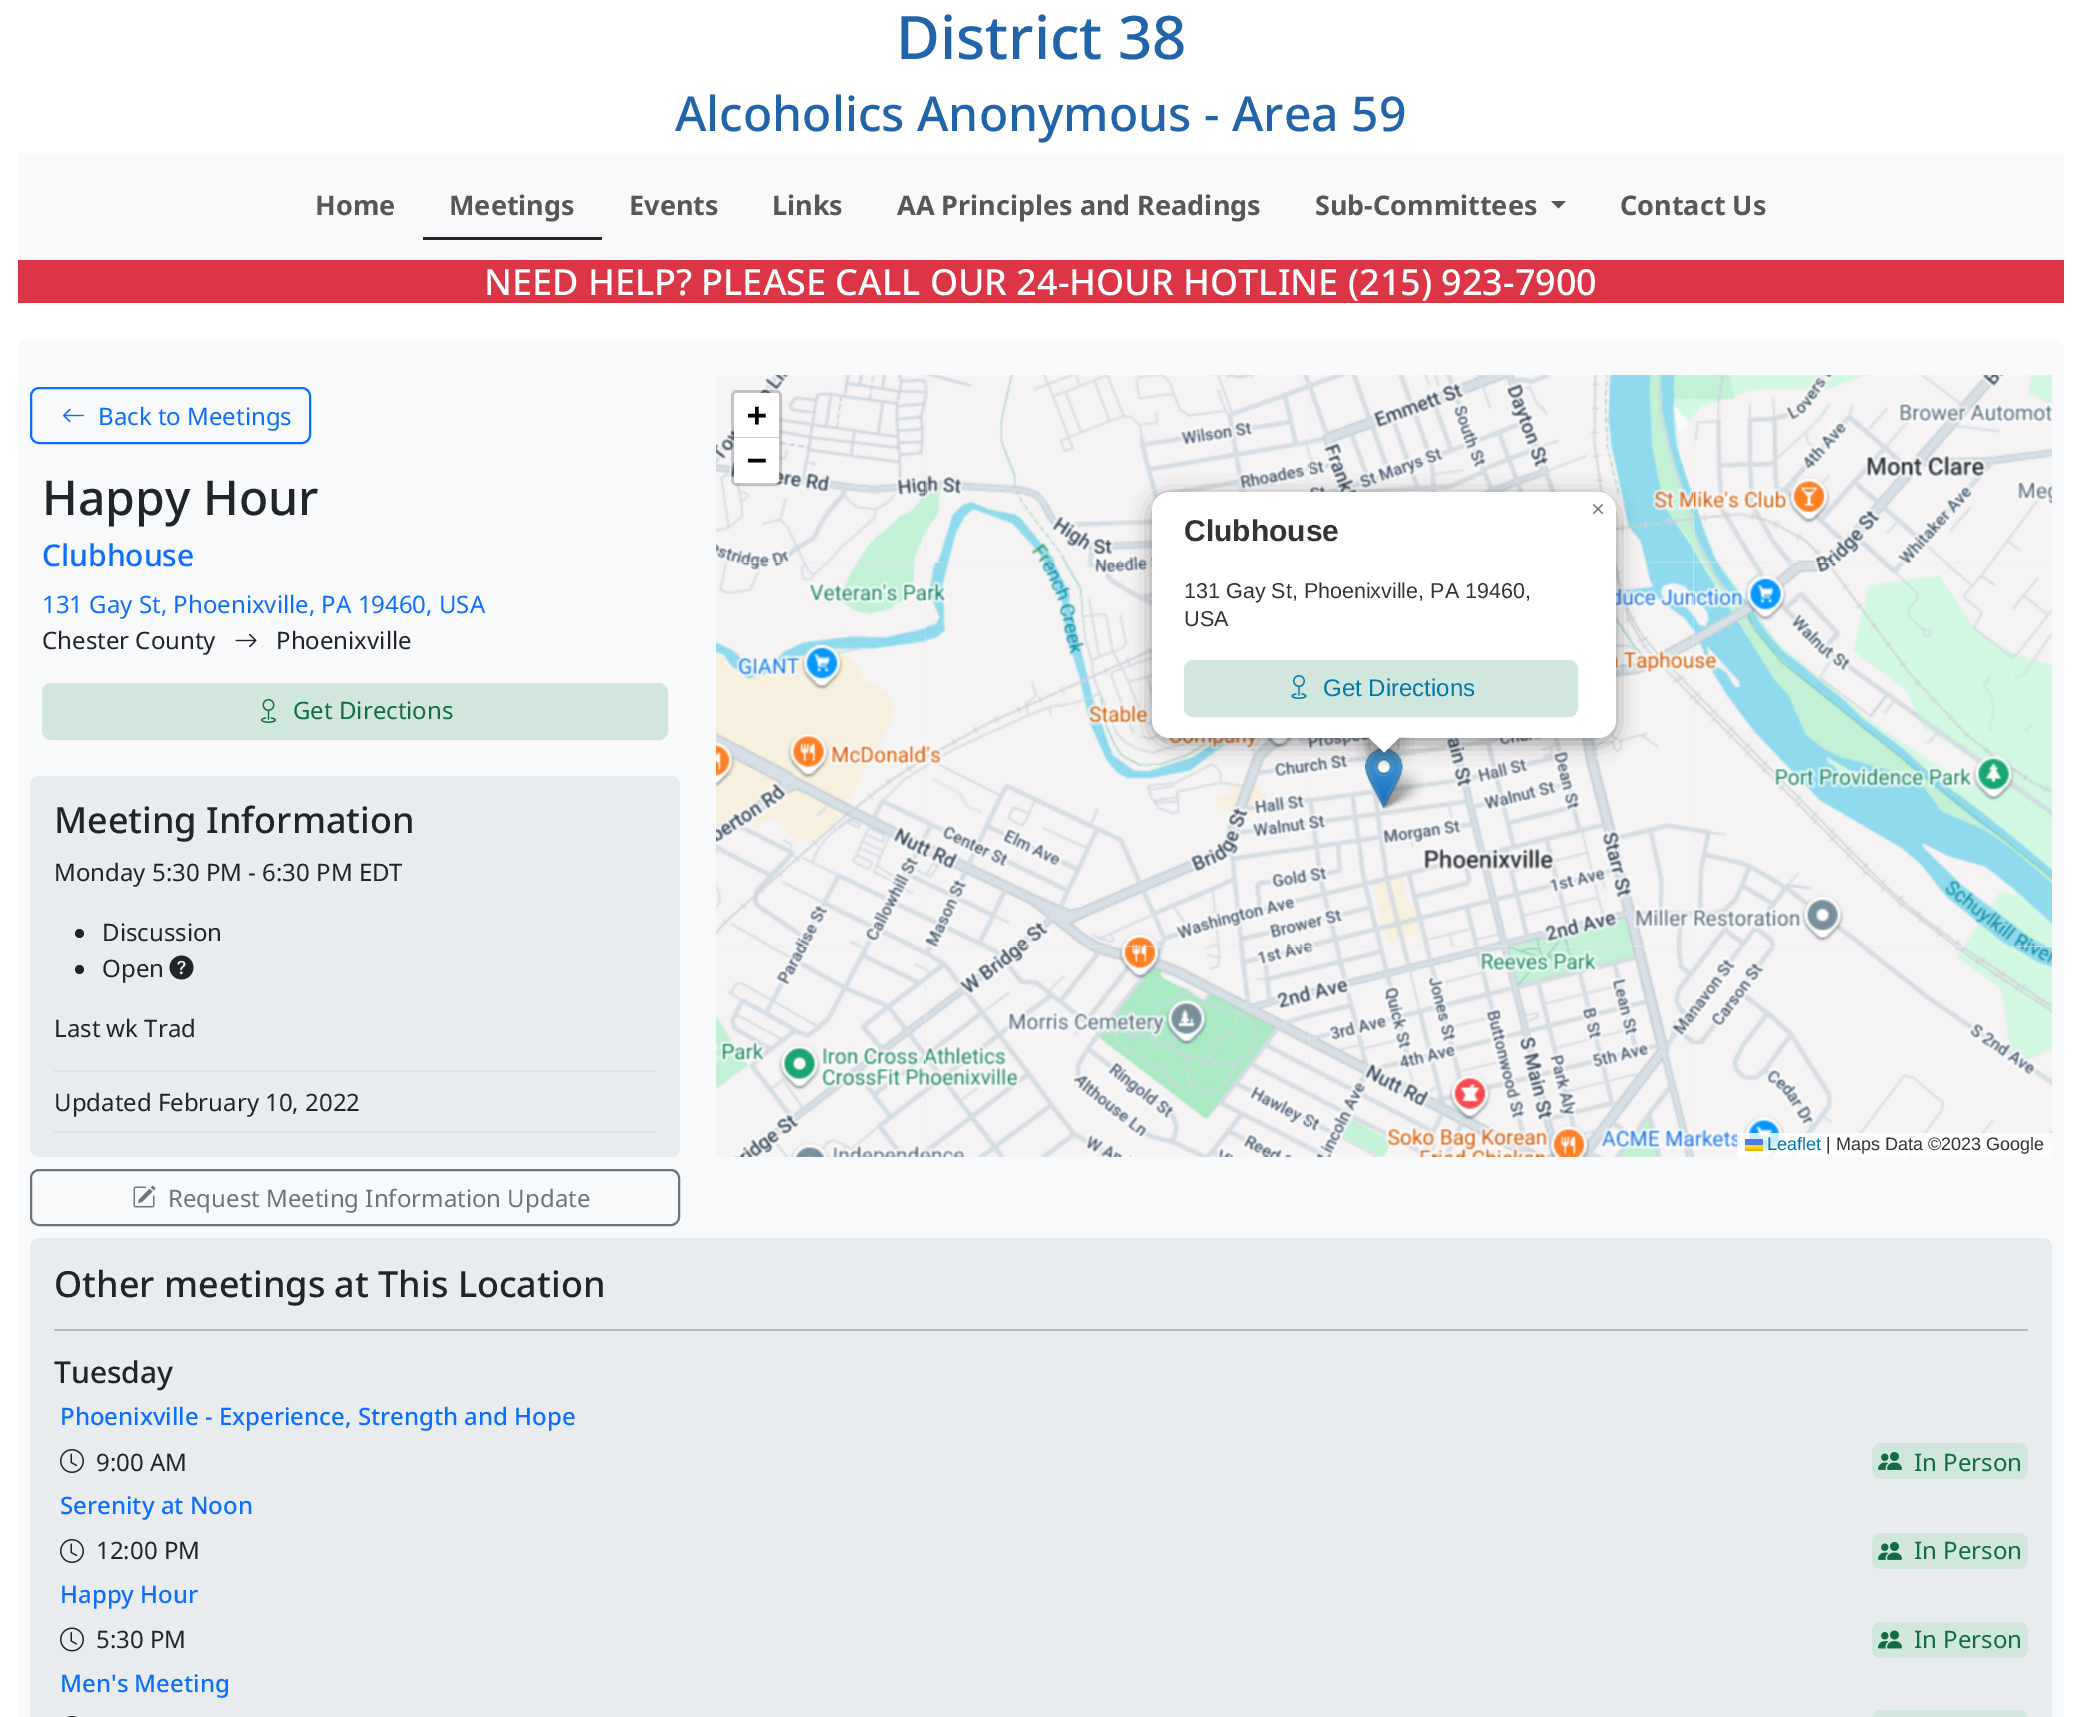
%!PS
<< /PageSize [2082 1717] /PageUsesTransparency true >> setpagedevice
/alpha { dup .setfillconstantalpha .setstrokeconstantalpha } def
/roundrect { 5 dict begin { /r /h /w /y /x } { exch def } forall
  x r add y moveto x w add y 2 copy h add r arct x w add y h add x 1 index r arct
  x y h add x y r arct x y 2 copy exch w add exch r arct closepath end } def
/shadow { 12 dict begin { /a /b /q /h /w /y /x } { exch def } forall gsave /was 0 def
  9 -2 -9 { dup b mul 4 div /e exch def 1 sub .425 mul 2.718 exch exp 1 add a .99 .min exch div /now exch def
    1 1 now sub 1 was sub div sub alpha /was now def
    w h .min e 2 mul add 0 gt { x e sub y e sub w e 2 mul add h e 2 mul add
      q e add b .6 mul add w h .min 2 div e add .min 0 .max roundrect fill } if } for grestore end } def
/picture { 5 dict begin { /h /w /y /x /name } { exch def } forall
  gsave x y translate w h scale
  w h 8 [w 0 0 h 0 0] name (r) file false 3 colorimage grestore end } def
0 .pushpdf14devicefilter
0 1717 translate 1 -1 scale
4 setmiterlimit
1 setgray
0 0 2082 1717 rectfill
/NotoSans-Medium [60 0 0 -60 0 0] selectfont
0.133 0.392 0.663 setrgbcolor
896 59 moveto (District 38) show
/NotoSans-Medium [48 0 0 -48 0 0] selectfont
675 131 moveto (Alcoholics Anonymous - Area 59) show
0.973 0.976 0.98 setrgbcolor
18 153 2046 107 rectfill
/NotoSans-Bold [27 0 0 -27 0 0] selectfont
0.341 0.341 0.345 setrgbcolor
315 215 moveto (Home) show
0.129 0.145 0.161 setrgbcolor
423 237 179 3 rectfill
0.341 0.341 0.345 setrgbcolor
449 215 moveto (Meetings) show
629 215 moveto (Events) show
772 215 moveto (Links) show
897 215 moveto (AA Principles and Readings) show
1315 215 moveto (Sub-Committees) show
newpath 1551 201 moveto 1566 201 lineto 1558.5 208.5 lineto closepath fill
1620 215 moveto (Contact Us) show
0.863 0.208 0.271 setrgbcolor
18 260 2046 43 rectfill
/NotoSans-Medium [36 0 0 -36 0 0] selectfont
1 setgray
484 295 moveto (NEED HELP? PLEASE CALL OUR 24-HOUR HOTLINE \(215\) 923-7900) show
0.973 0.976 0.98 setrgbcolor
18 339 2046 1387 9 roundrect fill
0.051 0.431 0.992 setrgbcolor
2 setlinewidth
31 388 279 55 8 roundrect stroke
(img1.rgb) 63 408 21 15 picture
/NotoSans-Regular [24 0 0 -24 0 0] selectfont
98 425 moveto (Back to Meetings) show
/NotoSans-Medium [48 0 0 -48 0 0] selectfont
0.129 0.145 0.161 setrgbcolor
42 515 moveto (Happy Hour) show
/NotoSans-Medium [30 0 0 -30 0 0] selectfont
0.051 0.431 0.992 setrgbcolor
42 566 moveto (Clubhouse) show
/NotoSans-Regular [24 0 0 -24 0 0] selectfont
42 613 moveto (131 Gay St, Phoenixville, PA 19460, USA) show
0.129 0.145 0.161 setrgbcolor
42 649 moveto (Chester County) show
(img2.rgb) 235 633 22 15 picture
276 649 moveto (Phoenixville) show
0.82 0.906 0.867 setrgbcolor
43 684 624 55 8 roundrect gsave fill grestore
stroke
(img3.rgb) 261 699 15 24 picture
0.078 0.424 0.263 setrgbcolor
293 719 moveto (Get Directions) show
0.914 0.925 0.937 setrgbcolor
30 776 650 381 9 roundrect fill
/NotoSans-Medium [36 0 0 -36 0 0] selectfont
0.129 0.145 0.161 setrgbcolor
54 833 moveto (Meeting Information) show
/NotoSans-Regular [24 0 0 -24 0 0] selectfont
54 881 moveto (Monday 5:30 PM - 6:30 PM EDT) show
newpath 79.5 933.5 4.5 0 360 arc closepath fill
102 941 moveto (Discussion) show
newpath 79.5 969.5 4.5 0 360 arc closepath fill
102 977 moveto (Open) show
(img4.rgb) 169 955 25 25 picture
54 1037 moveto (Last wk Trad) show
0.871 0.886 0.902 setrgbcolor
54 1070 602 2 rectfill
54 1131 602 2 rectfill
0.129 0.145 0.161 setrgbcolor
54 1111 moveto (Updated February 10, 2022) show
0.914 0.925 0.937 setrgbcolor
716 375 1336 782 rectfill
(img10.rgb) 925 562 385 385 picture
(img5.rgb) 716 375 210 188 picture
0.2 alpha
0 setgray
3 setlinewidth
732.5 391.5 48 93 4.5 roundrect stroke
1 alpha
1 setgray
newpath 737 393 moveto 776 393 lineto 777.5 393 779 394.5 779 396 curveto 779 438 lineto 734 438 lineto 734 396 lineto 734 394.5 735.5 393 737 393 curveto closepath fill
0.8 setgray
734 437 45 1 rectfill
/DejaVuSansMono-Bold [33 0 0 -33 0 0] selectfont
0 setgray
747 426 moveto (+) show
1 setgray
newpath 734 438 moveto 779 438 lineto 779 480 lineto 779 481.5 777.5 483 776 483 curveto 737 483 lineto 735.5 483 734 481.5 734 480 curveto closepath fill
0 setgray
747 471 moveto (−) show
(img16.rgb) 1694 947 358 210 picture
0.8 alpha
1 setgray
1737 1133 315 24 rectfill
/LiberationSans-Regular [18 0 0 -18 0 0] selectfont
1 alpha
0 0.471 0.659 setrgbcolor
1767 1150 moveto (Leaflet) show
0.298 0.482 0.882 setrgbcolor
1745 1139 18 6 rectfill
1 0.835 0 setrgbcolor
1745 1145 18 4 rectfill
0.878 0.737 0 setrgbcolor
1745 1149 18 2 rectfill
0.2 setgray
1826 1150 moveto (| Maps Data ©2023 Google) show
(img11.rgb) 1309 562 385 385 picture
(img6.rgb) 926 375 384 188 picture
(img7.rgb) 1310 375 384 188 picture
(img8.rgb) 1694 375 358 188 picture
(img9.rgb) 716 563 210 384 picture
(img12.rgb) 1694 563 358 384 picture
(img13.rgb) 716 947 210 210 picture
(img14.rgb) 926 947 384 210 picture
(img15.rgb) 1310 947 384 210 picture
(img19.rgb) 1378 766 46 43 picture
(img18.rgb) 1365 748 38 61 picture
0 setgray
1152 497 464 246 18 10.5 0.4 shadow
1 setgray
1152 492 464 246 18 roundrect fill
/LiberationSans-Regular [24 0 0 -24 0 0] selectfont
0.459 setgray
1591 517 moveto (×) show
/LiberationSans-Bold [30 0 0 -30 0 0] selectfont
0.2 setgray
1184 541 moveto (Clubhouse) show
/LiberationSans-Regular [21.5 0 0 -21.5 0 0] selectfont
1184 598 moveto (131 Gay St, Phoenixville, PA 19460,) show
1184 626 moveto (USA) show
0.82 0.906 0.867 setrgbcolor
1185 661 392 55 8 roundrect gsave fill grestore
2 setlinewidth
stroke
(img17.rgb) 1291 675 16 24 picture
/LiberationSans-Regular [24 0 0 -24 0 0] selectfont
0 0.471 0.659 setrgbcolor
1323 696 moveto (Get Directions) show
gsave
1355 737 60 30 rectclip
0 setgray
1371 726 26 26 0 10.5 0.4 shadow
grestore
gsave
1355 737 60 30 rectclip
1 setgray
newpath 1384 716.5 moveto 1402.5 734.5 lineto 1384 752.5 lineto 1366 734.5 lineto closepath fill
grestore
0.424 0.459 0.49 setrgbcolor
31 1170 648 55 8 roundrect stroke
(img20.rgb) 133 1185 23 23 picture
/NotoSans-Regular [24 0 0 -24 0 0] selectfont
168 1207 moveto (Request Meeting Information Update) show
0.914 0.925 0.937 setrgbcolor
30 1238 2022 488 9 roundrect fill
/NotoSans-Medium [36 0 0 -36 0 0] selectfont
0.129 0.145 0.161 setrgbcolor
54 1297 moveto (Other meetings at This Location) show
0.718 0.729 0.745 setrgbcolor
54 1329 1974 2 rectfill
/NotoSans-Medium [30 0 0 -30 0 0] selectfont
0.129 0.145 0.161 setrgbcolor
54 1383 moveto (Tuesday) show
/NotoSans-Medium [24 0 0 -24 0 0] selectfont
0.051 0.431 0.992 setrgbcolor
60 1425 moveto (Phoenixville - Experience, Strength and Hope) show
(img21.rgb) 60 1449 24 24 picture
/NotoSans-Regular [24 0 0 -24 0 0] selectfont
0.129 0.145 0.161 setrgbcolor
96 1471 moveto (9:00 AM) show
0.82 0.906 0.867 setrgbcolor
1872 1443 156 36 9 roundrect fill
(img22.rgb) 1878 1452 24 18 picture
0.078 0.424 0.263 setrgbcolor
1914 1471 moveto (In Person) show
/NotoSans-Medium [24 0 0 -24 0 0] selectfont
0.051 0.431 0.992 setrgbcolor
60 1514 moveto (Serenity at Noon) show
(img21.rgb) 60 1539 24 24 picture
/NotoSans-Regular [24 0 0 -24 0 0] selectfont
0.129 0.145 0.161 setrgbcolor
96 1559 moveto (12:00 PM) show
0.82 0.906 0.867 setrgbcolor
1872 1533 156 36 9 roundrect fill
(img22.rgb) 1878 1542 24 18 picture
0.078 0.424 0.263 setrgbcolor
1914 1559 moveto (In Person) show
/NotoSans-Medium [24 0 0 -24 0 0] selectfont
0.051 0.431 0.992 setrgbcolor
60 1603 moveto (Happy Hour) show
(img23.rgb) 60 1627 24 25 picture
/NotoSans-Regular [24 0 0 -24 0 0] selectfont
0.129 0.145 0.161 setrgbcolor
96 1648 moveto (5:30 PM) show
0.82 0.906 0.867 setrgbcolor
1872 1622 156 36 9 roundrect fill
(img24.rgb) 1878 1630 24 19 picture
0.078 0.424 0.263 setrgbcolor
1914 1648 moveto (In Person) show
/NotoSans-Medium [24 0 0 -24 0 0] selectfont
0.051 0.431 0.992 setrgbcolor
60 1692 moveto (Men's Meeting) show
(img25.rgb) 67 1716 10 1 picture
0.82 0.906 0.867 setrgbcolor
1872 1710 156 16 9 roundrect fill
.poppdf14devicefilter showpage
